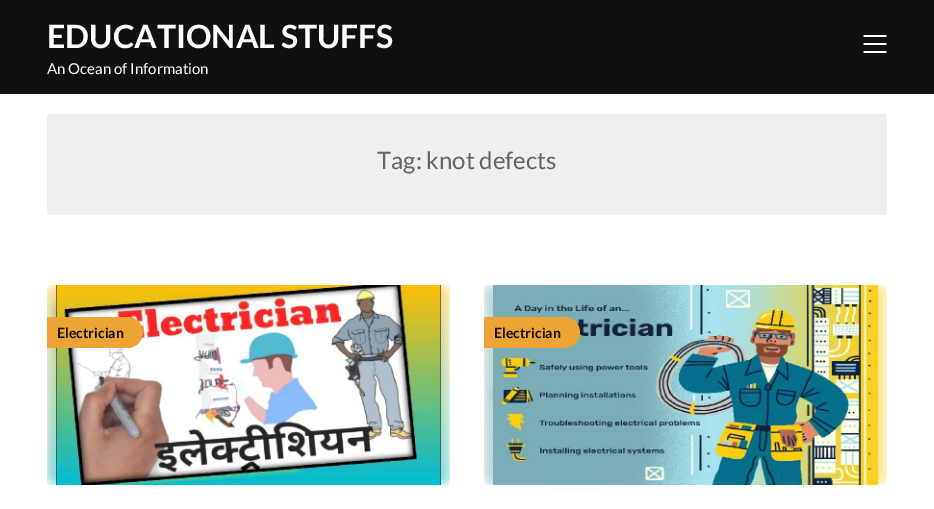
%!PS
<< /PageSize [934 509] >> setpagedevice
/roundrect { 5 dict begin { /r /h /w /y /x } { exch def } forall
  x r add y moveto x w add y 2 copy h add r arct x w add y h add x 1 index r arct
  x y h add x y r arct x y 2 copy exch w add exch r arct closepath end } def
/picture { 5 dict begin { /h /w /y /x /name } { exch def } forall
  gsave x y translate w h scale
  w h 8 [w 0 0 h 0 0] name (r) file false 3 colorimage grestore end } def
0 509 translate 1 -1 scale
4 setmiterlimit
1 setgray
0 0 934 509 rectfill
0.063 setgray
0 0 934 94 rectfill
/Lato-Bold [32 0 0 -32 0 0] selectfont
1 setgray
47 48 moveto (EDUCATIONAL STUFFS) show
/Lato-Regular [15 0 0 -15 0 0] selectfont
47 74 moveto (An Ocean of Information) show
(img1.rgb) 863 35 24 18 picture
0.937 setgray
47 114 840 101 3 roundrect fill
/Lato-Regular [24 0 0 -24 0 0] selectfont
0.392 setgray
377 169 moveto (Tag: knot defects) show
(img2.rgb) 47 285 403 200 picture
(img3.rgb) 56 285 385 200 picture
0.929 0.643 0.208 setrgbcolor
newpath 47 317 moveto 127.5 317 lineto 136 317 143 324 143 332.5 curveto 143 341 136 348 127.5 348 curveto 47 348 lineto closepath fill
/Lato-Bold [14 0 0 -14 0 0] selectfont
0.063 setgray
57 338 moveto (Electrician) show
(img4.rgb) 484 285 403 200 picture
(img5.rgb) 493 285 385 200 picture
0.929 0.643 0.208 setrgbcolor
newpath 484 317 moveto 564.5 317 lineto 573 317 580 324 580 332.5 curveto 580 341 573 348 564.5 348 curveto 484 348 lineto closepath fill
0.063 setgray
494 338 moveto (Electrician) show
showpage
